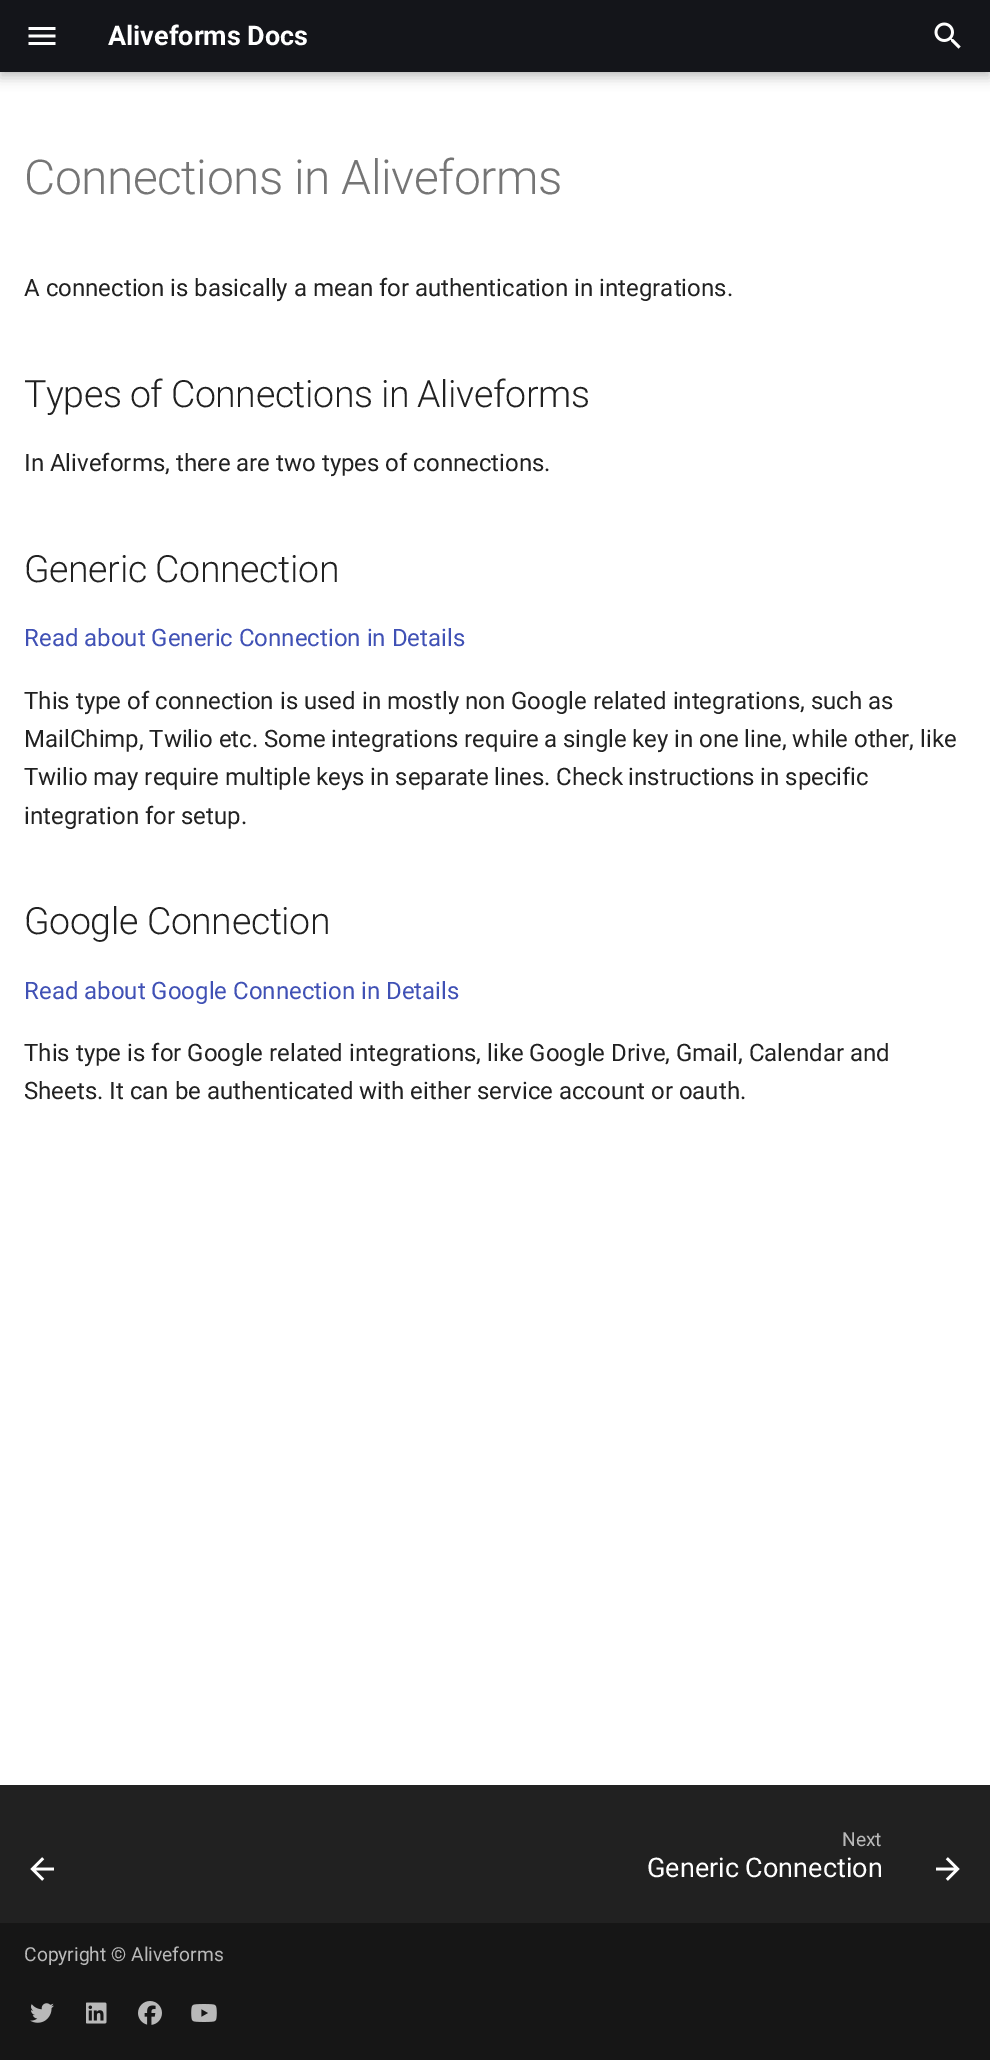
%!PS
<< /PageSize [990 2060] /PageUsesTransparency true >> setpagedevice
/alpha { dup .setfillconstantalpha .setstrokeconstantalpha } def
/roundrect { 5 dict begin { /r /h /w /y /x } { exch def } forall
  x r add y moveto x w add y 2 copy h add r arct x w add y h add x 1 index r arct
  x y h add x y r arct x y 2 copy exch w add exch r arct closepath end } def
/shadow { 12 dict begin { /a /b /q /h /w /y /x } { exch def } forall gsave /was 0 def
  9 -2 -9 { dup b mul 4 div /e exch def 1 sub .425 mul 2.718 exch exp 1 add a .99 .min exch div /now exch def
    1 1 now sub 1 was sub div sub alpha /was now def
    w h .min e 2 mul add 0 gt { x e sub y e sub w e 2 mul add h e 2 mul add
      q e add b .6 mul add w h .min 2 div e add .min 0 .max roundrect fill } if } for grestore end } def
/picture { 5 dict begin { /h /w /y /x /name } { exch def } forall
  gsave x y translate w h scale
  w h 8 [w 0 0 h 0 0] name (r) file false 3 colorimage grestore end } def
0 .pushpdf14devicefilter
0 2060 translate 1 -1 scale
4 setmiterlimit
1 setgray
0 0 990 2060 rectfill
0 setgray
0 6 990 72 0 6 0.2 shadow
0 0 990 72 0 3 0.1 shadow
0.078 0.082 0.102 setrgbcolor
0 0 990 72 rectfill
(img1.rgb) 28 27 28 18 picture
/Roboto-Bold [27 0 0 -27 0 0] selectfont
1 setgray
108 45 moveto (Aliveforms Docs) show
(img2.rgb) 934 22 27 27 picture
/Roboto-Light [48 0 0 -48 0 0] selectfont
0.459 setgray
24 194 moveto -0.5 0 (Connections in Aliveforms) ashow
/Roboto-Regular [24 0 0 -24 0 0] selectfont
0.129 setgray
24 296 moveto (A connection is basically a mean for authentication in integrations.) show
/Roboto-Light [37.5 0 0 -37.5 0 0] selectfont
24 407 moveto -0.5 0 32 -0.4 0 (Types of Connections in Aliveforms) awidthshow
/Roboto-Regular [24 0 0 -24 0 0] selectfont
24 471 moveto (In Aliveforms, there are two types of connections.) show
/Roboto-Light [37.5 0 0 -37.5 0 0] selectfont
24 582 moveto -0.4 0 (Generic Connection) ashow
/Roboto-Regular [24 0 0 -24 0 0] selectfont
0.251 0.318 0.71 setrgbcolor
24 646 moveto (Read about Generic Connection in Details) show
0.129 setgray
24 709 moveto (This type of connection is used in mostly non Google related integrations, such as) show
24 747 moveto -0.25 0 32 (MailChimp, Twilio etc. Some integrations require a single key in one line, while other, like) widthshow
24 785 moveto -0.25 0 32 (Twilio may require multiple keys in separate lines. Check instructions in specific) widthshow
24 824 moveto (integration for setup.) show
/Roboto-Light [37.5 0 0 -37.5 0 0] selectfont
24 934 moveto -0.4 0 (Google Connection) ashow
/Roboto-Regular [24 0 0 -24 0 0] selectfont
0.251 0.318 0.71 setrgbcolor
24 999 moveto (Read about Google Connection in Details) show
0.129 setgray
24 1061 moveto (This type is for Google related integrations, like Google Drive, Gmail, Calendar and) show
24 1099 moveto (Sheets. It can be authenticated with either service account or oauth.) show
0 1785 990 138 rectfill
(img3.rgb) 30 1857 24 24 picture
/Roboto-Regular [19.25 0 0 -19.25 0 0] selectfont
0.725 setgray
842 1846 moveto (Next) show
/Roboto-Regular [27 0 0 -27 0 0] selectfont
1 setgray
647 1877 moveto (Generic Connection) show
(img4.rgb) 936 1857 24 24 picture
0.086 setgray
0 1923 990 137 rectfill
/Roboto-Regular [19.25 0 0 -19.25 0 0] selectfont
0.725 setgray
24 1961 moveto (Copyright © Aliveforms) show
(img5.rgb) 30 2003 24 20 picture
(img6.rgb) 86 2002 21 22 picture
(img7.rgb) 138 2001 24 24 picture
(img8.rgb) 191 2004 26 18 picture
.poppdf14devicefilter showpage
